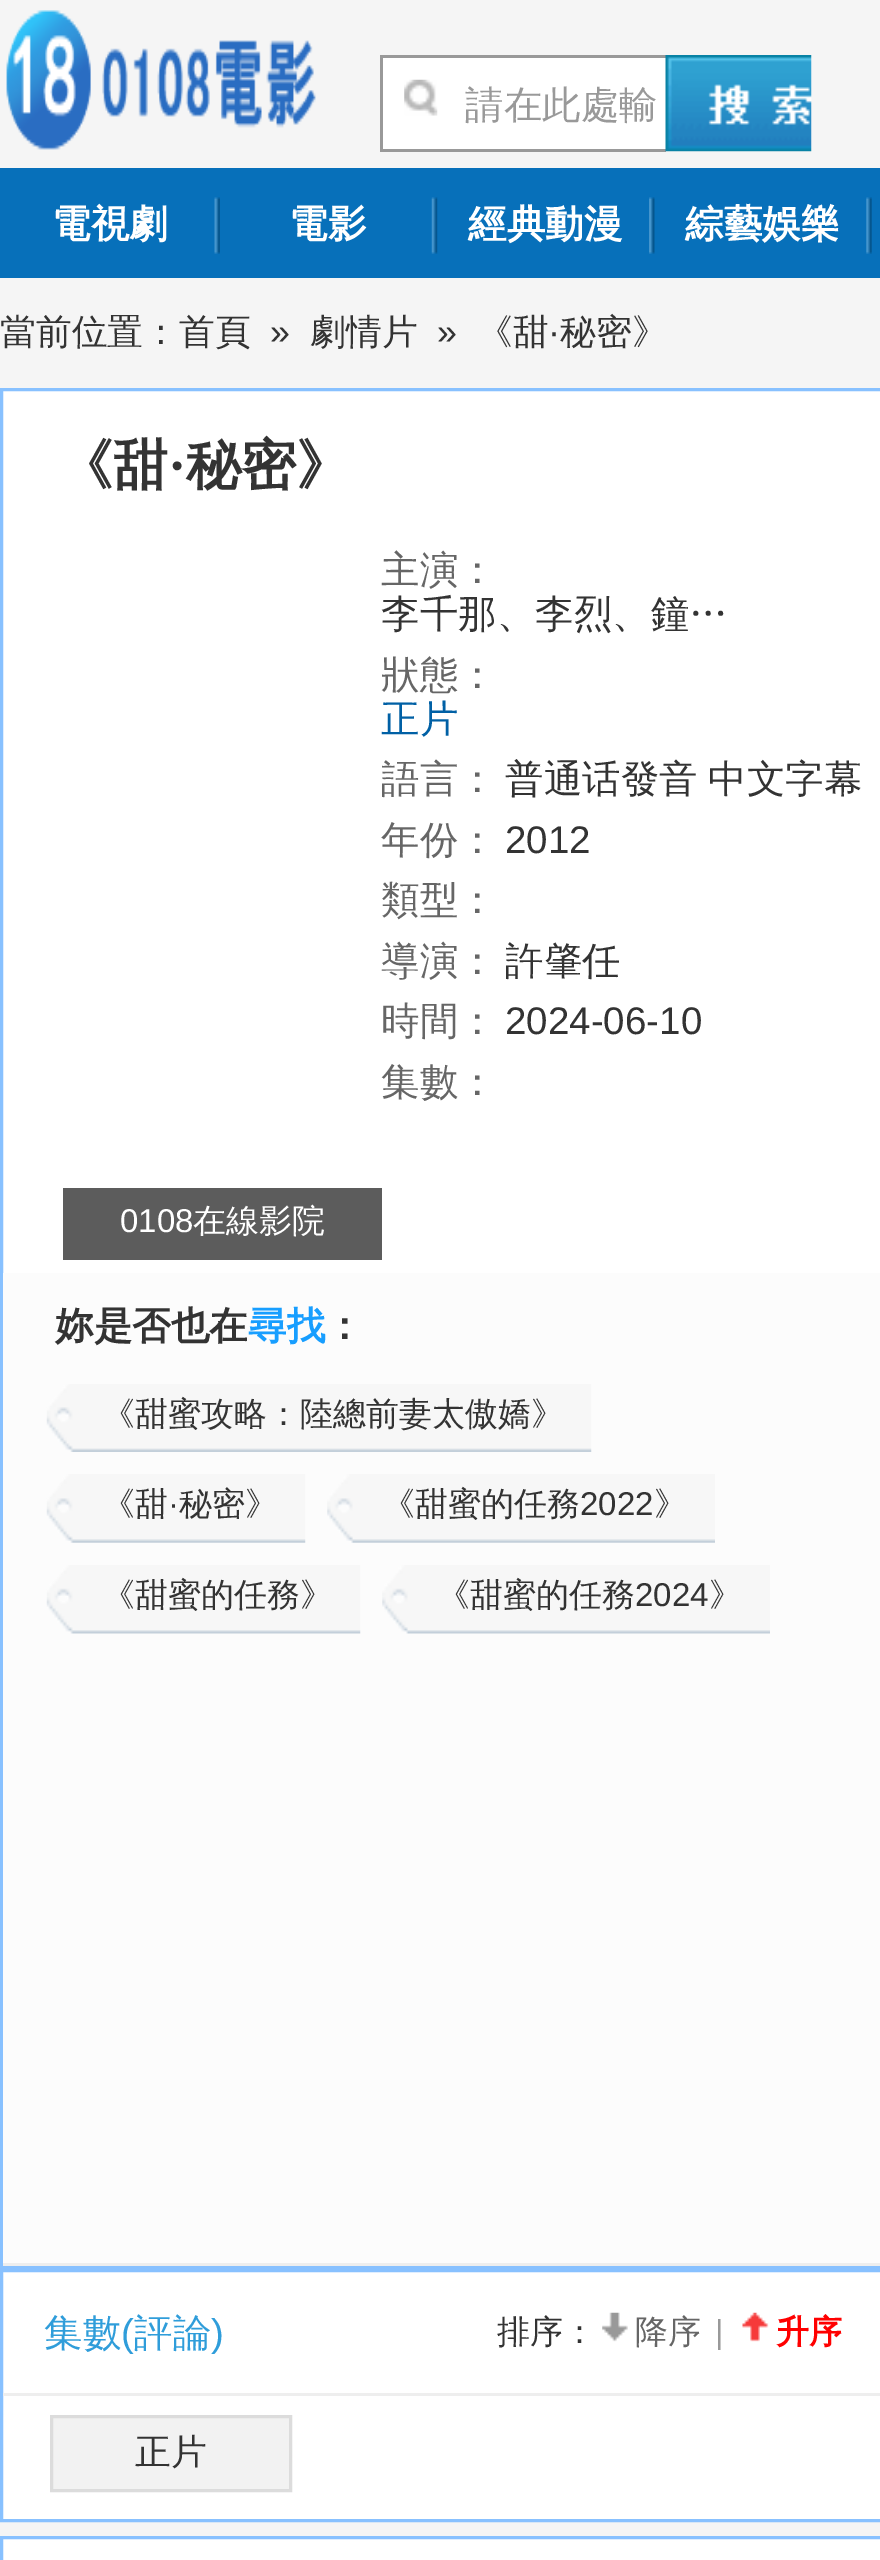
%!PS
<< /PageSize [880 2560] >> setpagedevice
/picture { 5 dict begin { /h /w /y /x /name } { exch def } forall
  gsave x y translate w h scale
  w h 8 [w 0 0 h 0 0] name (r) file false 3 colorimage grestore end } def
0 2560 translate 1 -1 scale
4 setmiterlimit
0.961 setgray
0 0 880 2560 rectfill
(img1.rgb) 6 10 310 140 picture
1 setgray
383 58 283 91 rectfill
(img2.rgb) 404 79 34 37 picture
0.6 setgray
380 55 286 3 rectfill
380 149 286 3 rectfill
380 55 3 96 rectfill
/WenQuanYiZenHei-Medium [38.5 0 0 -38.5 0 0] selectfont
465 118 moveto (請在此處輸) show
(img3.rgb) 665 55 147 97 picture
0.027 0.439 0.729 setrgbcolor
0 168 880 110 rectfill
(img4.rgb) 214 197 6 57 picture
/WenQuanYiZenHei-Bold [38.5 0 0 -38.5 0 0] selectfont
1 setgray
52 237 moveto (電視劇) show
(img5.rgb) 431 197 7 57 picture
289 237 moveto (電影) show
(img6.rgb) 649 197 6 57 picture
468 237 moveto (經典動漫) show
(img7.rgb) 866 197 6 57 picture
685 237 moveto (綜藝娛樂) show
/WenQuanYiZenHei-Medium [35.75 0 0 -35.75 0 0] selectfont
0.2 setgray
0 344 moveto (當前位置：首頁) show
/LiberationSans-Regular [35.75 0 0 -35.75 0 0] selectfont
270 344 moveto (») show
/WenQuanYiZenHei-Medium [35.75 0 0 -35.75 0 0] selectfont
310 344 moveto (劇情片) show
/LiberationSans-Regular [35.75 0 0 -35.75 0 0] selectfont
437 344 moveto (») show
/WenQuanYiZenHei-Medium [35.75 0 0 -35.75 0 0] selectfont
477 344 moveto (《甜) show
/LiberationSans-Regular [35.75 0 0 -35.75 0 0] selectfont
548 344 moveto (·) show
/WenQuanYiZenHei-Medium [35.75 0 0 -35.75 0 0] selectfont
560 344 moveto (秘密》) show
1 setgray
3 391 877 882 rectfill
0.533 0.757 1 setrgbcolor
3 setlinewidth
1.5 389.5 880 1878 rectstroke
/WenQuanYiZenHei-Bold [55 0 0 -55 0 0] selectfont
0.2 setgray
58 484 moveto (《甜) show
/LiberationSerif-Bold [55 0 0 -55 0 0] selectfont
168 484 moveto (·) show
/WenQuanYiZenHei-Bold [55 0 0 -55 0 0] selectfont
186 484 moveto (秘密》) show
/WenQuanYiZenHei-Medium [38.5 0 0 -38.5 0 0] selectfont
0.4 setgray
381 583 moveto (主演：) show
0.2 setgray
381 627 moveto (李千那、李烈、鐘…) show
0.4 setgray
381 688 moveto (狀態：) show
0 0.376 0.647 setrgbcolor
381 732 moveto (正片) show
gsave
382 756 124 44 rectclip
0.4 setgray
381 792 moveto (語言：) show
grestore
0.2 setgray
505 792 moveto -1 0 32 (普通话發音 中文字幕) widthshow
0.4 setgray
381 853 moveto (年份：) show
/LiberationSans-Regular [38.5 0 0 -38.5 0 0] selectfont
0.2 setgray
505 853 moveto (2012) show
/WenQuanYiZenHei-Medium [38.5 0 0 -38.5 0 0] selectfont
0.4 setgray
381 913 moveto (類型：) show
381 974 moveto (導演：) show
gsave
506 938 316 44 rectclip
0.2 setgray
505 974 moveto (許肇任) show
grestore
381 1034 moveto (時間：) show
/LiberationSans-Regular [38.5 0 0 -38.5 0 0] selectfont
0.2 setgray
505 1034 moveto (2024-06-10) show
/WenQuanYiZenHei-Medium [38.5 0 0 -38.5 0 0] selectfont
0.4 setgray
381 1095 moveto (集數：) show
0.361 setgray
63 1188 319 72 rectfill
/LiberationSans-Regular [33 0 0 -33 0 0] selectfont
1 setgray
120 1232 moveto (0108) show
/WenQuanYiZenHei-Medium [33 0 0 -33 0 0] selectfont
193 1232 moveto (在線影院) show
0.988 setgray
3 1273 877 990 rectfill
0.933 setgray
3 2263 877 3 rectfill
/WenQuanYiZenHei-Bold [38.5 0 0 -38.5 0 0] selectfont
0.2 setgray
55 1339 moveto (妳是否也在) show
0.09 0.62 1 setrgbcolor
248 1339 moveto (尋找) show
0.2 setgray
325 1339 moveto (：) show
(img8.rgb) 46 1384 546 68 picture
/WenQuanYiZenHei-Medium [33 0 0 -33 0 0] selectfont
102 1425 moveto (《甜蜜攻略：陸總前妻太傲嬌》) show
(img9.rgb) 46 1474 260 69 picture
102 1515 moveto (《甜) show
/LiberationSans-Regular [33 0 0 -33 0 0] selectfont
168 1515 moveto (·) show
/WenQuanYiZenHei-Medium [33 0 0 -33 0 0] selectfont
179 1515 moveto (秘密》) show
(img10.rgb) 327 1474 388 69 picture
382 1515 moveto (《甜蜜的任務) show
/LiberationSans-Regular [33 0 0 -33 0 0] selectfont
580 1515 moveto (2022) show
/WenQuanYiZenHei-Medium [33 0 0 -33 0 0] selectfont
654 1515 moveto (》) show
(img11.rgb) 46 1565 315 69 picture
102 1606 moveto (《甜蜜的任務》) show
(img12.rgb) 382 1565 388 69 picture
437 1606 moveto (《甜蜜的任務) show
/LiberationSans-Regular [33 0 0 -33 0 0] selectfont
635 1606 moveto (2024) show
/WenQuanYiZenHei-Medium [33 0 0 -33 0 0] selectfont
709 1606 moveto (》) show
1 setgray
newpath 1.5 2270.5 moveto 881.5 2270.5 lineto 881.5 2520.5 lineto 1.5 2520.5 lineto closepath gsave fill grestore
0.533 0.757 1 setrgbcolor
stroke
0.933 setgray
3 2393 877 3 rectfill
/WenQuanYiZenHei-Medium [38.5 0 0 -38.5 0 0] selectfont
0.184 0.616 0.855 setrgbcolor
44 2346 moveto (集數) show
/LiberationSans-Regular [38.5 0 0 -38.5 0 0] selectfont
121 2346 moveto (\() show
/WenQuanYiZenHei-Medium [38.5 0 0 -38.5 0 0] selectfont
134 2346 moveto (評論) show
/LiberationSans-Regular [38.5 0 0 -38.5 0 0] selectfont
211 2346 moveto (\)) show
/WenQuanYiZenHei-Medium [33 0 0 -33 0 0] selectfont
0.2 setgray
497 2343 moveto (排序：) show
(img13.rgb) 602 2312 26 30 picture
0.4 setgray
635 2343 moveto (降序) show
/LiberationSans-Regular [33 0 0 -33 0 0] selectfont
0.6 setgray
715 2343 moveto (|) show
(img14.rgb) 742 2312 27 30 picture
/WenQuanYiZenHei-Bold [33 0 0 -33 0 0] selectfont
1 0 0 setrgbcolor
776 2343 moveto (升序) show
0.949 setgray
newpath 51.5 2416.5 moveto 290.5 2416.5 lineto 290.5 2490.5 lineto 51.5 2490.5 lineto closepath gsave fill grestore
0.863 setgray
stroke
/WenQuanYiZenHei-Medium [35.75 0 0 -35.75 0 0] selectfont
0.2 setgray
135 2464 moveto (正片) show
1 setgray
newpath 1.5 2537.5 moveto 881.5 2537.5 lineto 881.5 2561.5 lineto 1.5 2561.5 lineto closepath gsave fill grestore
0.533 0.757 1 setrgbcolor
stroke
showpage
